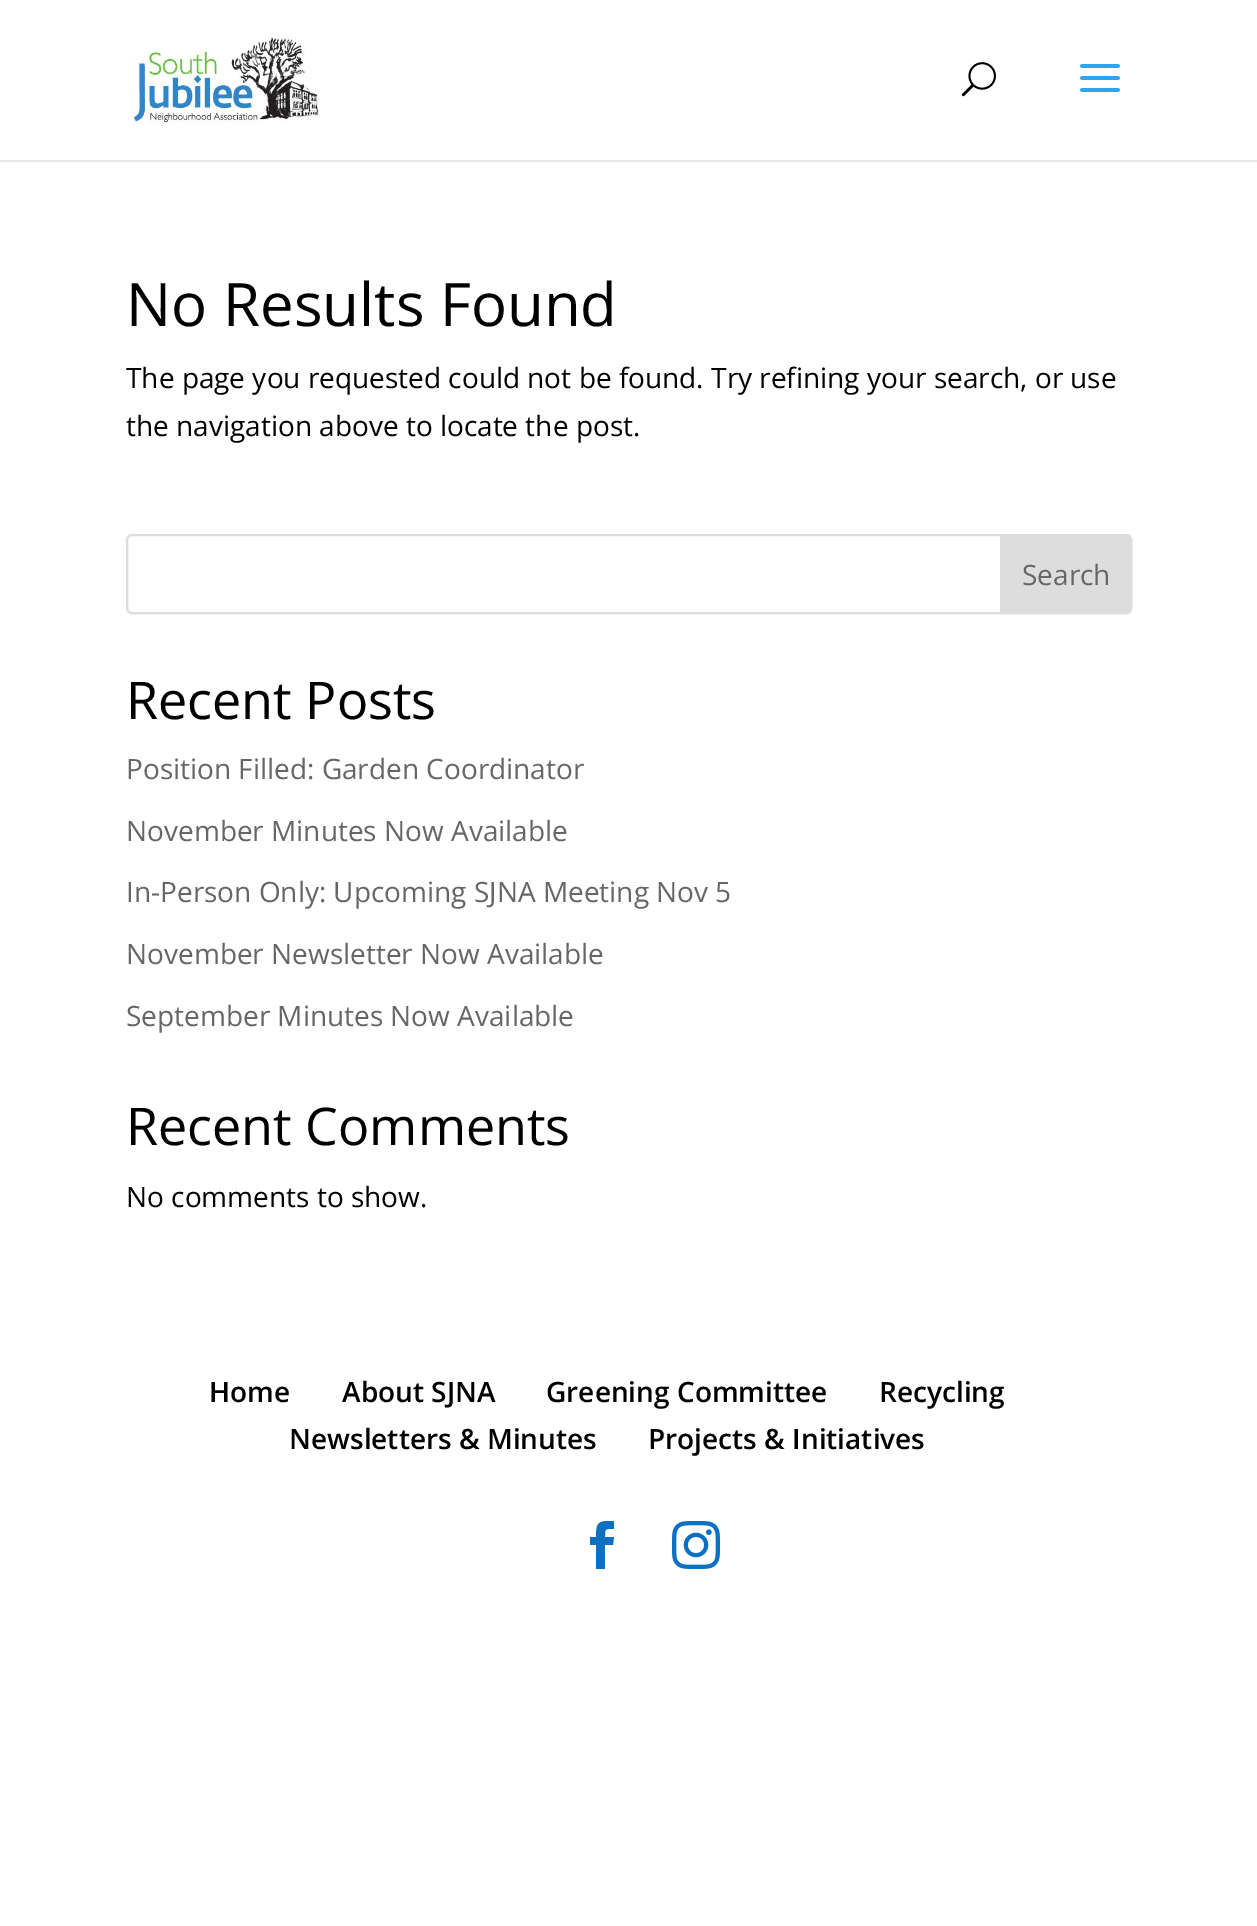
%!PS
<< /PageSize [1257 1926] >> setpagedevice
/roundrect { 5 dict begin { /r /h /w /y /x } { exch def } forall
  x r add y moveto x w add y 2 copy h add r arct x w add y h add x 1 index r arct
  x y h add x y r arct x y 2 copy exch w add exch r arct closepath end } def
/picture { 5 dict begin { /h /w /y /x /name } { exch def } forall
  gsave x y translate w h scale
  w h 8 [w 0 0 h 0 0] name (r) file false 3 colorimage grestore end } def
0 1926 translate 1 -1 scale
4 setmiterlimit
1 setgray
0 0 1257 1926 rectfill
0.902 setgray
0 160 1257 2 rectfill
(img1.rgb) 134 36 185 88 picture
(img2.rgb) 961 62 35 35 picture
(img3.rgb) 1080 64 40 28 picture
/OpenSans-Regular [60 0 0 -60 0 0] selectfont
0 setgray
126 326 moveto (No Results Found) show
/OpenSans-Regular [28 0 0 -28 0 0] selectfont
126 388 moveto (The page you requested could not be found. Try refining your search, or use) show
126 436 moveto (the navigation above to locate the post.) show
0.867 setgray
2 setlinewidth
127 535 1004 78 5 roundrect stroke
newpath 1001 535 moveto 1126 535 lineto 1129 535 1131 537 1131 540 curveto 1131 608 lineto 1131 611 1129 613 1126 613 curveto 1001 613 lineto closepath gsave fill grestore
stroke
0.4 setgray
1022 585 moveto (Search) show
/OpenSans-Regular [52 0 0 -52 0 0] selectfont
0 setgray
126 719 moveto (Recent Posts) show
/OpenSans-Regular [28 0 0 -28 0 0] selectfont
0.4 setgray
126 779 moveto (Position Filled: Garden Coordinator) show
126 841 moveto (November Minutes Now Available) show
126 902 moveto (In-Person Only: Upcoming SJNA Meeting Nov 5) show
126 964 moveto (November Newsletter Now Available) show
126 1026 moveto (September Minutes Now Available) show
/OpenSans-Regular [52 0 0 -52 0 0] selectfont
0 setgray
126 1145 moveto (Recent Comments) show
/OpenSans-Regular [28 0 0 -28 0 0] selectfont
126 1207 moveto (No comments to show.) show
/OpenSans-SemiBold [28 0 0 -28 0 0] selectfont
209 1402 moveto (Home) show
342 1402 moveto (About SJNA) show
546 1402 moveto (Greening Committee) show
879 1402 moveto (Recycling) show
289 1449 moveto (Newsletters & Minutes) show
648 1449 moveto (Projects & Initiatives) show
0.047 0.443 0.765 setrgbcolor
newpath 596 1569 moveto 605 1569 lineto 605 1545 lineto 613 1545 lineto 614 1537 lineto 605 1537 lineto 605 1528 605 1529 614 1529 curveto 614 1521 lineto 599 1521 596 1521 596 1537 curveto 590 1537 lineto 590 1545 lineto 596 1545 lineto closepath fill
(img4.rgb) 672 1521 48 48 picture
showpage
